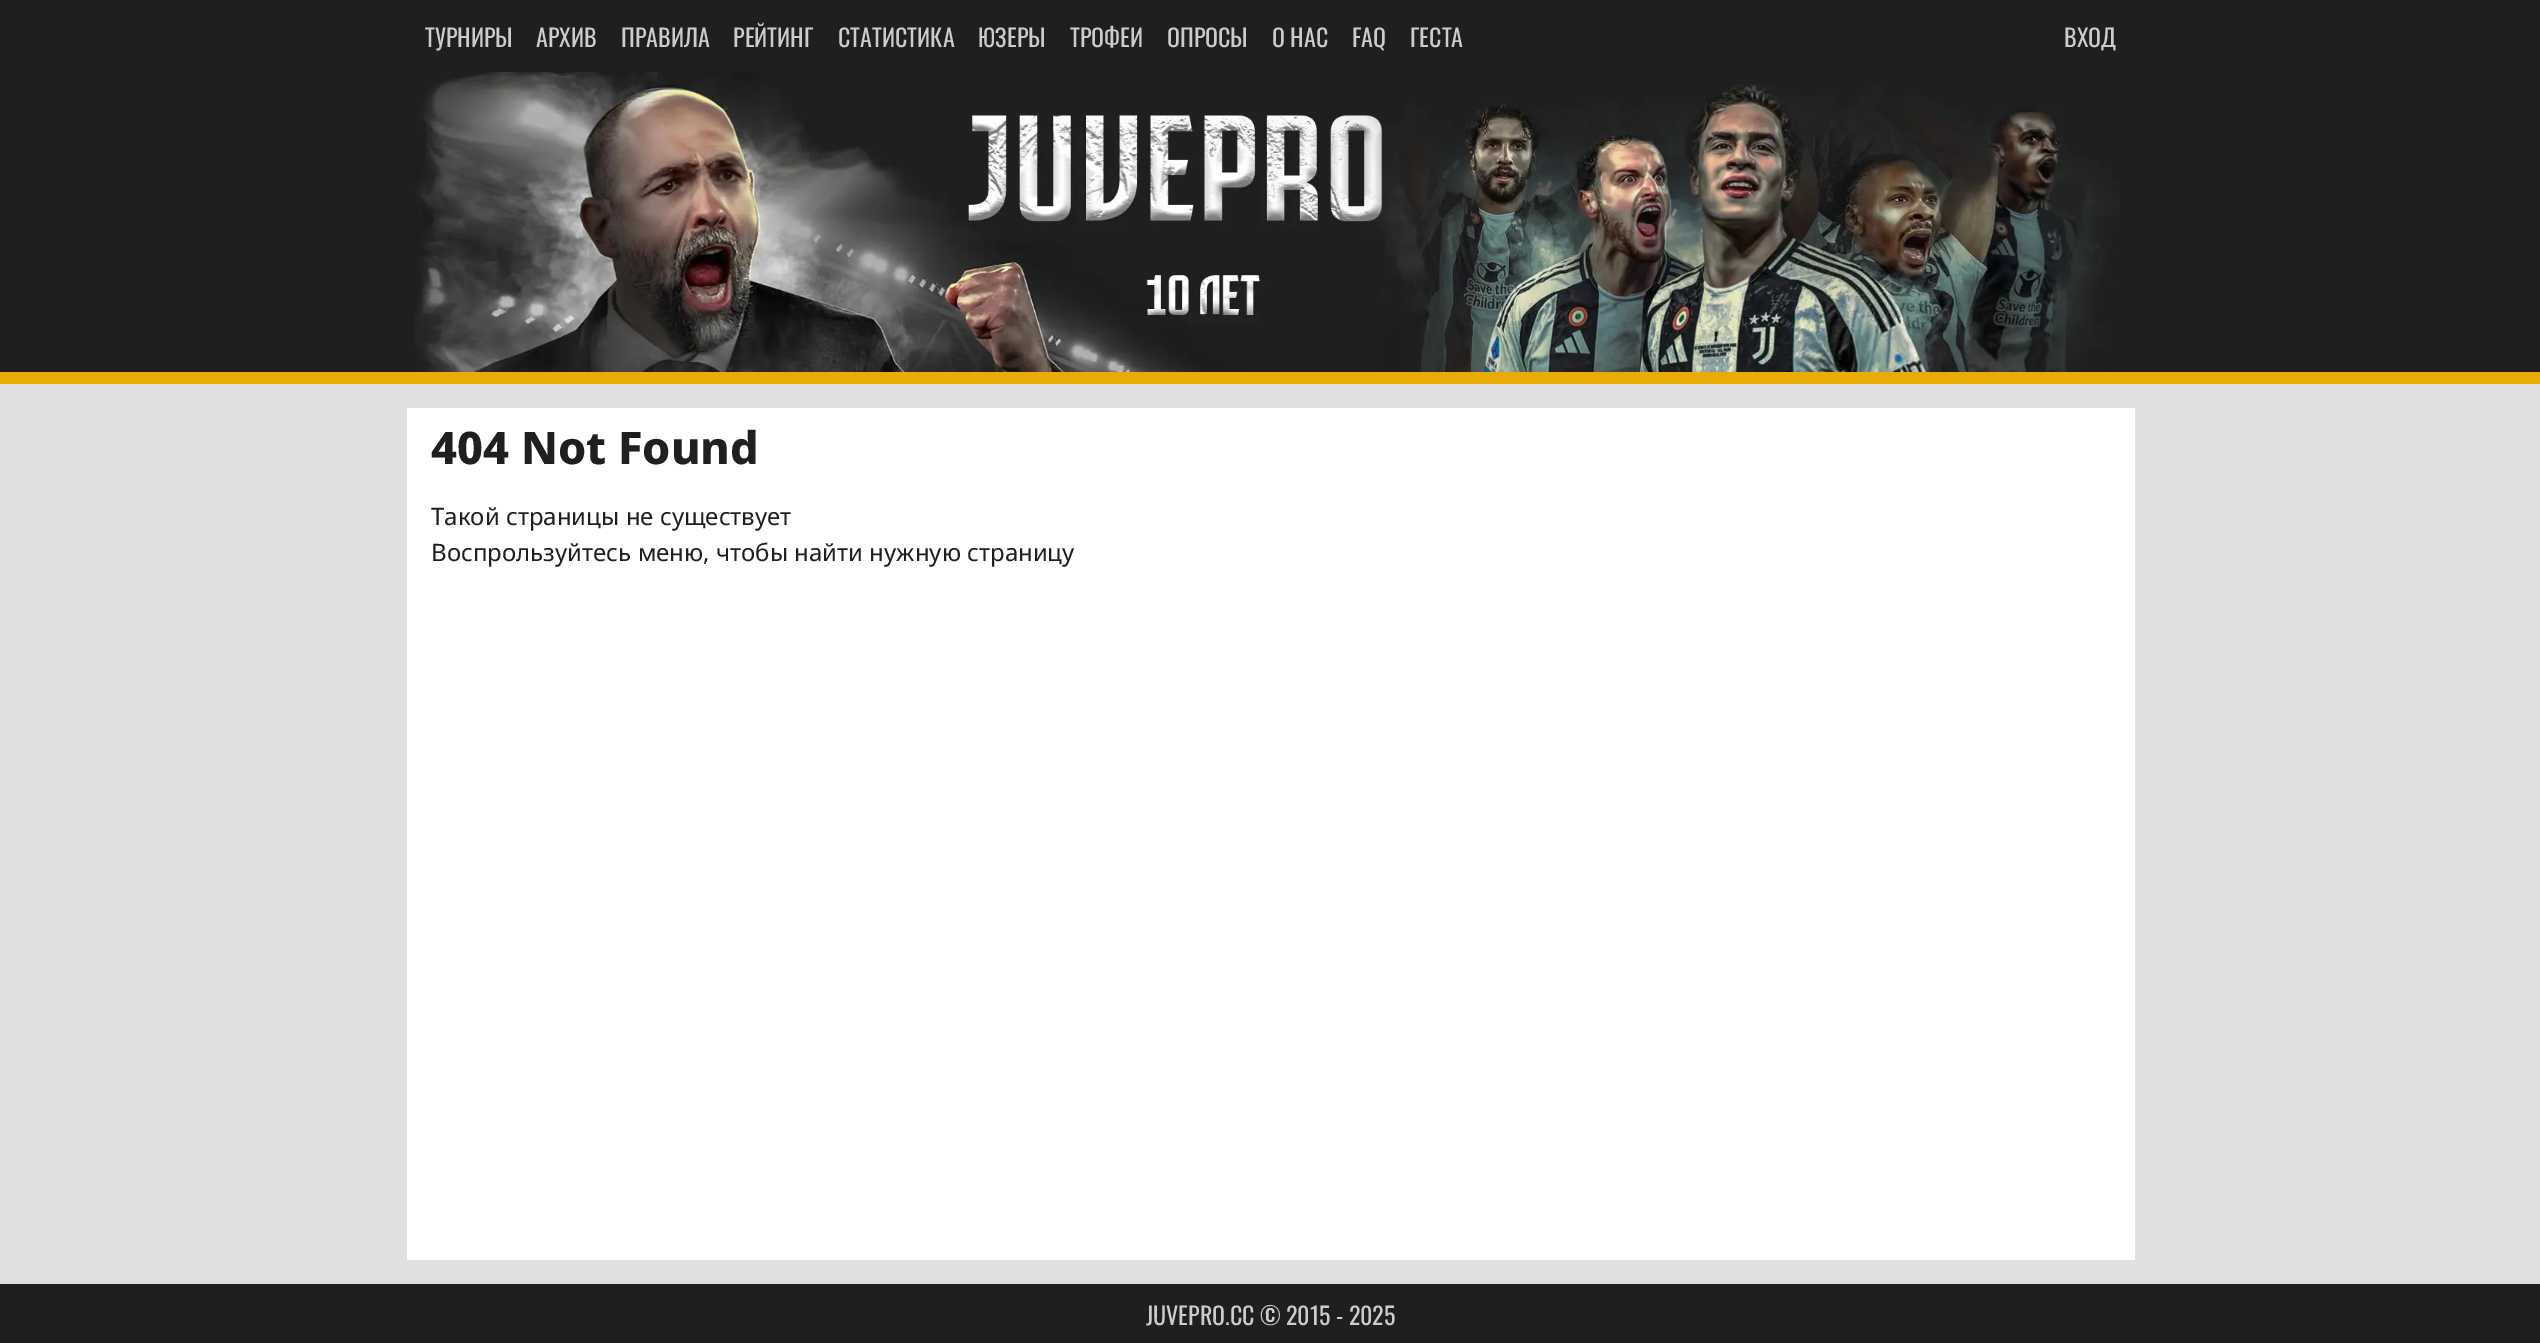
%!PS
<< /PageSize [2540 1343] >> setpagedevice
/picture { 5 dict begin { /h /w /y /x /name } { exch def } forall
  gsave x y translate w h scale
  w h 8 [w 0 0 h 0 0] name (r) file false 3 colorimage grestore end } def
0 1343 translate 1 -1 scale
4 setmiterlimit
0.122 setgray
0 0 2540 1343 rectfill
/Oswald-Regular [24 0 0 -24 0 0] selectfont
0.8 setgray
425 47 moveto (ТУРНИРЫ) show
536 47 moveto (АРХИВ) show
621 47 moveto (ПРАВИЛА) show
733 47 moveto (РЕЙТИНГ) show
838 47 moveto (СТАТИСТИКА) show
978 47 moveto (ЮЗЕРЫ) show
1070 47 moveto (ТРОФЕИ) show
1167 47 moveto (ОПРОСЫ) show
1272 47 moveto (О НАС) show
1352 47 moveto (FAQ) show
1410 47 moveto (ГЕСТА) show
2064 47 moveto (ВХОД) show
(img1.rgb) 414 72 1706 300 picture
0.875 setgray
0 384 2540 900 rectfill
0.918 0.675 0 setrgbcolor
0 372 2540 12 rectfill
1 setgray
407 408 1728 852 rectfill
/NotoSans-ExtraBold [45 0 0 -45 0 0] selectfont
0.122 setgray
431 464 moveto (404 Not Found) show
/NotoSans-Regular [24 0 0 -24 0 0] selectfont
431 525 moveto (Такой страницы не существует) show
431 561 moveto (Воспрользуйтесь меню, чтобы найти нужную страницу) show
/Oswald-Regular [24 0 0 -24 0 0] selectfont
0.8 setgray
1146 1325 moveto (JUVEPRO.CC © 2015 - 2025) show
showpage
